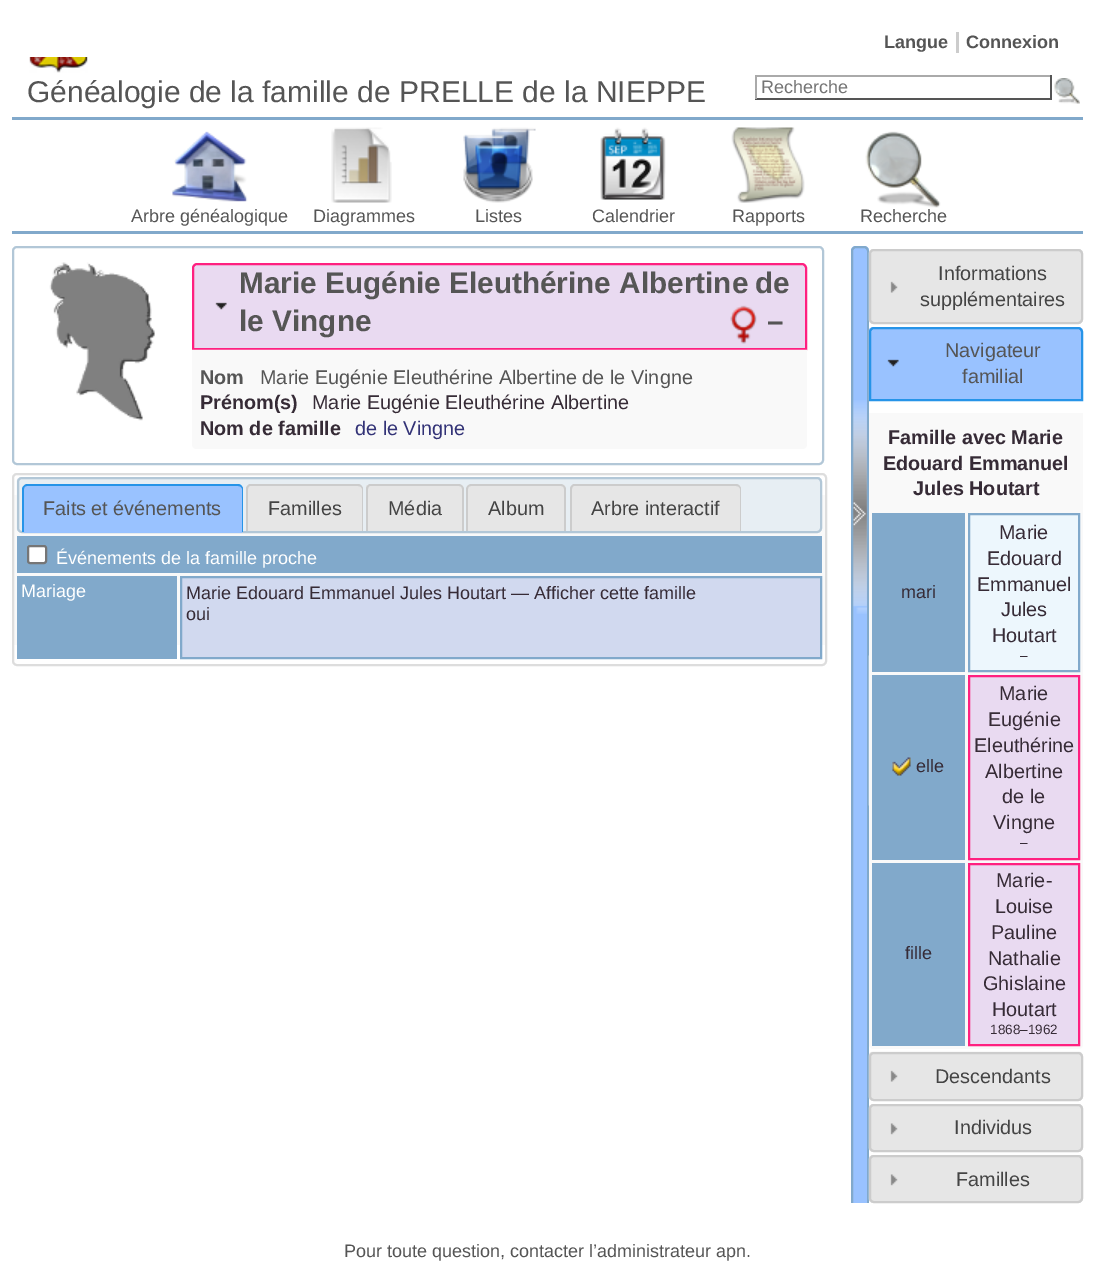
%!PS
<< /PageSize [1095 1286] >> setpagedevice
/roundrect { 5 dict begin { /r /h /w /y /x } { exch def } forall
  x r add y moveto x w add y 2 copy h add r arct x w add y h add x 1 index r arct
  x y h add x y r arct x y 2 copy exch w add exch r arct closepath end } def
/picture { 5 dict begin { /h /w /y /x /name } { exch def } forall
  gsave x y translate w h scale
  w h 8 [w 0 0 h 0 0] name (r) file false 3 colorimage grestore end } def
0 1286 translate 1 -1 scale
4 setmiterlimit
1 setgray
0 0 1095 1286 rectfill
/LiberationSans-Bold [18 0 0 -18 0 0] selectfont
0.333 setgray
884 48 moveto (Langue) show
966 48 moveto (Connexion) show
0.8 setgray
956 32 3 21 rectfill
(img1.rgb) 29 57 59 16 picture
/LiberationSans-Regular [30 0 0 -30 0 0] selectfont
0.333 setgray
27 102 moveto (Généalogie de la famille de PRELLE de la NIEPPE) show
0.667 setgray
755 75 297 2 rectfill
0.333 setgray
1050 75 2 24 rectfill
755 98 297 2 rectfill
0.667 setgray
755 75 2 24 rectfill
/LiberationSans-Regular [18 0 0 -18 0 0] selectfont
0.459 setgray
761 93 moveto (Recherche) show
(img2.rgb) 1054 78 26 26 picture
0.506 0.663 0.796 setrgbcolor
12 117 1071 3 rectfill
12 231 1071 3 rectfill
(img3.rgb) 172 131 76 71 picture
0.333 setgray
131 222 moveto (Arbre généalogique) show
(img4.rgb) 331 127 61 76 picture
313 222 moveto (Diagrammes) show
(img5.rgb) 463 127 73 76 picture
475 222 moveto (Listes) show
(img6.rgb) 600 127 66 73 picture
592 222 moveto (Calendrier) show
(img7.rgb) 731 127 74 76 picture
732 222 moveto (Rapports) show
(img8.rgb) 865 131 76 77 picture
860 222 moveto (Recherche) show
0.698 0.78 0.843 setrgbcolor
2 setlinewidth
13 247 810 217 4 roundrect stroke
(img9.rgb) 49 262 106 159 picture
0.914 0.855 0.945 setrgbcolor
newpath 197 264 moveto 802 264 lineto 804 264 806 266 806 268 curveto 806 349 lineto 193 349 lineto 193 268 lineto 193 266 195 264 197 264 curveto closepath gsave fill grestore
1 0.125 0.502 setrgbcolor
stroke
/LiberationSans-Bold [29.75 0 0 -29.75 0 0] selectfont
0.333 setgray
239 293 moveto (Marie Eugénie Eleuthérine Albertine) show
755 293 moveto (de) show
(img10.rgb) 215 302 12 8 picture
239 331 moveto (le Vingne) show
(img11.rgb) 730 305 27 39 picture
767 331 moveto (–) show
0.976 setgray
newpath 192 350 moveto 807 350 lineto 807 444 lineto 807 447 805 449 802 449 curveto 197 449 lineto 194 449 192 447 192 444 curveto closepath fill
0.992 0.337 0.62 setrgbcolor
192 349 615 1 rectfill
/LiberationSans-Bold [19.8 0 0 -19.8 0 0] selectfont
0.333 setgray
200 384 moveto (Nom) show
/LiberationSans-Regular [19.8 0 0 -19.8 0 0] selectfont
260 384 moveto (Marie Eugénie Eleuthérine Albertine de le Vingne) show
/LiberationSans-Bold [19.8 0 0 -19.8 0 0] selectfont
0.212 0.169 0.212 setrgbcolor
200 409 moveto (Prénom\(s\)) show
/LiberationSans-Regular [19.8 0 0 -19.8 0 0] selectfont
312 409 moveto (Marie Eugénie Eleuthérine Albertine) show
/LiberationSans-Bold [19.8 0 0 -19.8 0 0] selectfont
200 435 moveto (Nom de famille) show
/LiberationSans-Regular [19.8 0 0 -19.8 0 0] selectfont
0.2 0.2 0.467 setrgbcolor
355 435 moveto (de le Vingne) show
0.976 setgray
14 495 811 150 rectfill
0.867 setgray
13 474 813 191 4 roundrect stroke
(img12.rgb) 16 477 806 55 picture
0.698 0.78 0.843 setrgbcolor
18 478 803 54 4 roundrect stroke
0.6 0.761 1 setrgbcolor
newpath 27 486 moveto 239 486 lineto 240.5 486 242 487.5 242 489 curveto 242 533 lineto 24 533 lineto 24 489 lineto 24 487.5 25.5 486 27 486 curveto closepath fill
(img13.rgb) 22 484 221 49 picture
0.149 0.58 0.91 setrgbcolor
newpath 27 484 moveto 238 484 lineto 241 484 243 487 243 489 curveto 243 532 lineto 22 532 lineto 22 489 lineto 22 487 25 484 27 484 curveto closepath 27 486 moveto 238 486 lineto 240 486 242 487 242 489 curveto 242 532 lineto 24 532 lineto 24 489 lineto 24 487 25 486 27 486 curveto closepath eofill
0.333 setgray
43 515 moveto (Faits et événements) show
(img14.rgb) 246 485 117 46 picture
0.8 setgray
newpath 250 484 moveto 358 484 lineto 361 484 363 487 363 489 curveto 363 531 lineto 246 531 lineto 246 489 lineto 246 487 248 484 250 484 curveto closepath 250 486 moveto 358 486 lineto 360 486 362 487 362 489 curveto 362 531 lineto 248 531 lineto 248 489 lineto 248 487 249 486 250 486 curveto closepath eofill
0.267 setgray
268 515 moveto (Familles) show
0.902 setgray
366 485 97 46 rectfill
0.8 setgray
newpath 370 484 moveto 459 484 lineto 461 484 464 487 464 489 curveto 464 531 lineto 366 531 lineto 366 489 lineto 366 487 368 484 370 484 curveto closepath 370 486 moveto 459 486 lineto 461 486 462 487 462 489 curveto 462 531 lineto 368 531 lineto 368 489 lineto 368 487 369 486 370 486 curveto closepath eofill
0.267 setgray
388 515 moveto (Média) show
0.902 setgray
467 485 98 46 rectfill
0.8 setgray
newpath 471 484 moveto 561 484 lineto 563 484 566 487 566 489 curveto 566 531 lineto 466 531 lineto 466 489 lineto 466 487 469 484 471 484 curveto closepath 471 486 moveto 561 486 lineto 563 486 564 487 564 489 curveto 564 531 lineto 468 531 lineto 468 489 lineto 468 487 469 486 471 486 curveto closepath eofill
0.267 setgray
488 515 moveto (Album) show
(img15.rgb) 570 485 171 46 picture
0.8 setgray
newpath 574 484 moveto 736 484 lineto 739 484 741 487 741 489 curveto 741 531 lineto 570 531 lineto 570 489 lineto 570 487 572 484 574 484 curveto closepath 574 486 moveto 736 486 lineto 738 486 740 487 740 489 curveto 740 531 lineto 572 531 lineto 572 489 lineto 572 487 573 486 574 486 curveto closepath eofill
0.267 setgray
591 515 moveto (Arbre interactif) show
0.506 0.663 0.796 setrgbcolor
17 536 805 37 rectfill
1 setgray
28 546 18 17 2 roundrect gsave fill grestore
0.463 setgray
stroke
/LiberationSans-Regular [18 0 0 -18 0 0] selectfont
1 setgray
56 564 moveto (Événements de la famille proche) show
0.506 0.663 0.796 setrgbcolor
17 576 160 83 rectfill
1 setgray
21 597 moveto (Mariage) show
0.82 0.851 0.937 setrgbcolor
newpath 181 577 moveto 821 577 lineto 821 658 lineto 181 658 lineto closepath gsave fill grestore
0.506 0.663 0.796 setrgbcolor
stroke
0.212 0.169 0.212 setrgbcolor
186 599 moveto (Marie Edouard Emmanuel Jules Houtart — Afficher cette famille) show
186 620 moveto (oui) show
0.6 0.761 1 setrgbcolor
newpath 856 246 moveto 864 246 lineto 867 246 869 248 869 251 curveto 869 1203 lineto 851 1203 lineto 851 251 lineto 851 248 853 246 856 246 curveto closepath fill
(img16.rgb) 853 400 14 214 picture
gsave
824 246 45 957 rectclip
0.506 0.663 0.796 setrgbcolor
newpath 856 247 moveto 864 247 lineto 866 247 868 249 868 251 curveto 868 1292 lineto 852 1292 lineto 852 251 lineto 852 249 854 247 856 247 curveto closepath stroke
grestore
(img17.rgb) 868 249 215 75 picture
0.8 setgray
870 250 212 73 4 roundrect stroke
/LiberationSans-Regular [19.8 0 0 -19.8 0 0] selectfont
0.267 setgray
938 280 moveto (Informations) show
(img18.rgb) 890 281 8 12 picture
920 306 moveto (supplémentaires) show
(img19.rgb) 868 327 215 73 picture
0.149 0.58 0.91 setrgbcolor
newpath 874 328 moveto 1078 328 lineto 1080 328 1082 330 1082 332 curveto 1082 400 lineto 870 400 lineto 870 332 lineto 870 330 872 328 874 328 curveto closepath stroke
0.333 setgray
945 357 moveto (Navigateur) show
(img20.rgb) 887 359 12 8 picture
962 383 moveto (familial) show
0.976 setgray
newpath 869 413 moveto 1083 413 lineto 1083 1044 lineto 1083 1047 1081 1049 1078 1049 curveto 874 1049 lineto 871 1049 869 1047 869 1044 curveto closepath fill
(img21.rgb) 868 655 1 151 picture
/LiberationSans-Bold [19.8 0 0 -19.8 0 0] selectfont
0.212 0.169 0.212 setrgbcolor
888 444 moveto (Famille avec Marie) show
883 470 moveto (Edouard Emmanuel) show
913 495 moveto (Jules Houtart) show
0.506 0.663 0.796 setrgbcolor
872 513 93 159 rectfill
/LiberationSans-Regular [18 0 0 -18 0 0] selectfont
0.212 0.169 0.212 setrgbcolor
901 598 moveto (mari) show
0.929 0.969 0.992 setrgbcolor
newpath 969 514 moveto 1079 514 lineto 1079 671 lineto 969 671 lineto closepath gsave fill grestore
0.506 0.663 0.796 setrgbcolor
stroke
/LiberationSans-Regular [19.8 0 0 -19.8 0 0] selectfont
0.212 0.169 0.212 setrgbcolor
999 539 moveto (Marie) show
987 565 moveto (Edouard) show
977 591 moveto (Emmanuel) show
1001 616 moveto (Jules) show
992 642 moveto (Houtart) show
/LiberationSans-Regular [13.5 0 0 -13.5 0 0] selectfont
1020 660 moveto (–) show
0.506 0.663 0.796 setrgbcolor
872 675 93 185 rectfill
(img22.rgb) 892 757 19 19 picture
/LiberationSans-Regular [18 0 0 -18 0 0] selectfont
0.212 0.169 0.212 setrgbcolor
916 772 moveto (elle) show
0.914 0.855 0.945 setrgbcolor
newpath 969 676 moveto 1079 676 lineto 1079 859 lineto 969 859 lineto closepath gsave fill grestore
1 0.125 0.502 setrgbcolor
stroke
/LiberationSans-Regular [19.8 0 0 -19.8 0 0] selectfont
0.212 0.169 0.212 setrgbcolor
999 700 moveto (Marie) show
988 726 moveto (Eugénie) show
974 752 moveto (Eleuthérine) show
985 778 moveto (Albertine) show
1002 803 moveto (de le) show
993 829 moveto (Vingne) show
/LiberationSans-Regular [13.5 0 0 -13.5 0 0] selectfont
1020 847 moveto (–) show
0.506 0.663 0.796 setrgbcolor
872 863 93 183 rectfill
/LiberationSans-Regular [18 0 0 -18 0 0] selectfont
0.212 0.169 0.212 setrgbcolor
905 959 moveto (fille) show
0.914 0.855 0.945 setrgbcolor
newpath 969 864 moveto 1079 864 lineto 1079 1045 lineto 969 1045 lineto closepath gsave fill grestore
1 0.125 0.502 setrgbcolor
stroke
/LiberationSans-Regular [19.8 0 0 -19.8 0 0] selectfont
0.212 0.169 0.212 setrgbcolor
996 887 moveto (Marie-) show
995 913 moveto (Louise) show
991 939 moveto (Pauline) show
988 965 moveto (Nathalie) show
983 990 moveto (Ghislaine) show
992 1016 moveto (Houtart) show
/LiberationSans-Regular [13.5 0 0 -13.5 0 0] selectfont
990 1034 moveto (1868–1962) show
(img23.rgb) 868 1051 215 50 picture
0.8 setgray
870 1053 212 47 4 roundrect stroke
(img18.rgb) 890 1070 8 12 picture
/LiberationSans-Regular [19.8 0 0 -19.8 0 0] selectfont
0.267 setgray
935 1083 moveto (Descendants) show
(img24.rgb) 868 1104 215 48 picture
0.8 setgray
870 1105 212 46 4 roundrect stroke
(img25.rgb) 890 1123 8 12 picture
0.267 setgray
954 1134 moveto (Individus) show
(img24.rgb) 868 1155 215 48 picture
0.8 setgray
870 1156 212 46 4 roundrect stroke
(img25.rgb) 890 1174 8 12 picture
0.267 setgray
956 1186 moveto (Familles) show
/LiberationSans-Regular [18 0 0 -18 0 0] selectfont
0.333 setgray
344 1257 moveto (Pour toute question, contacter l’administrateur apn.) show
showpage
